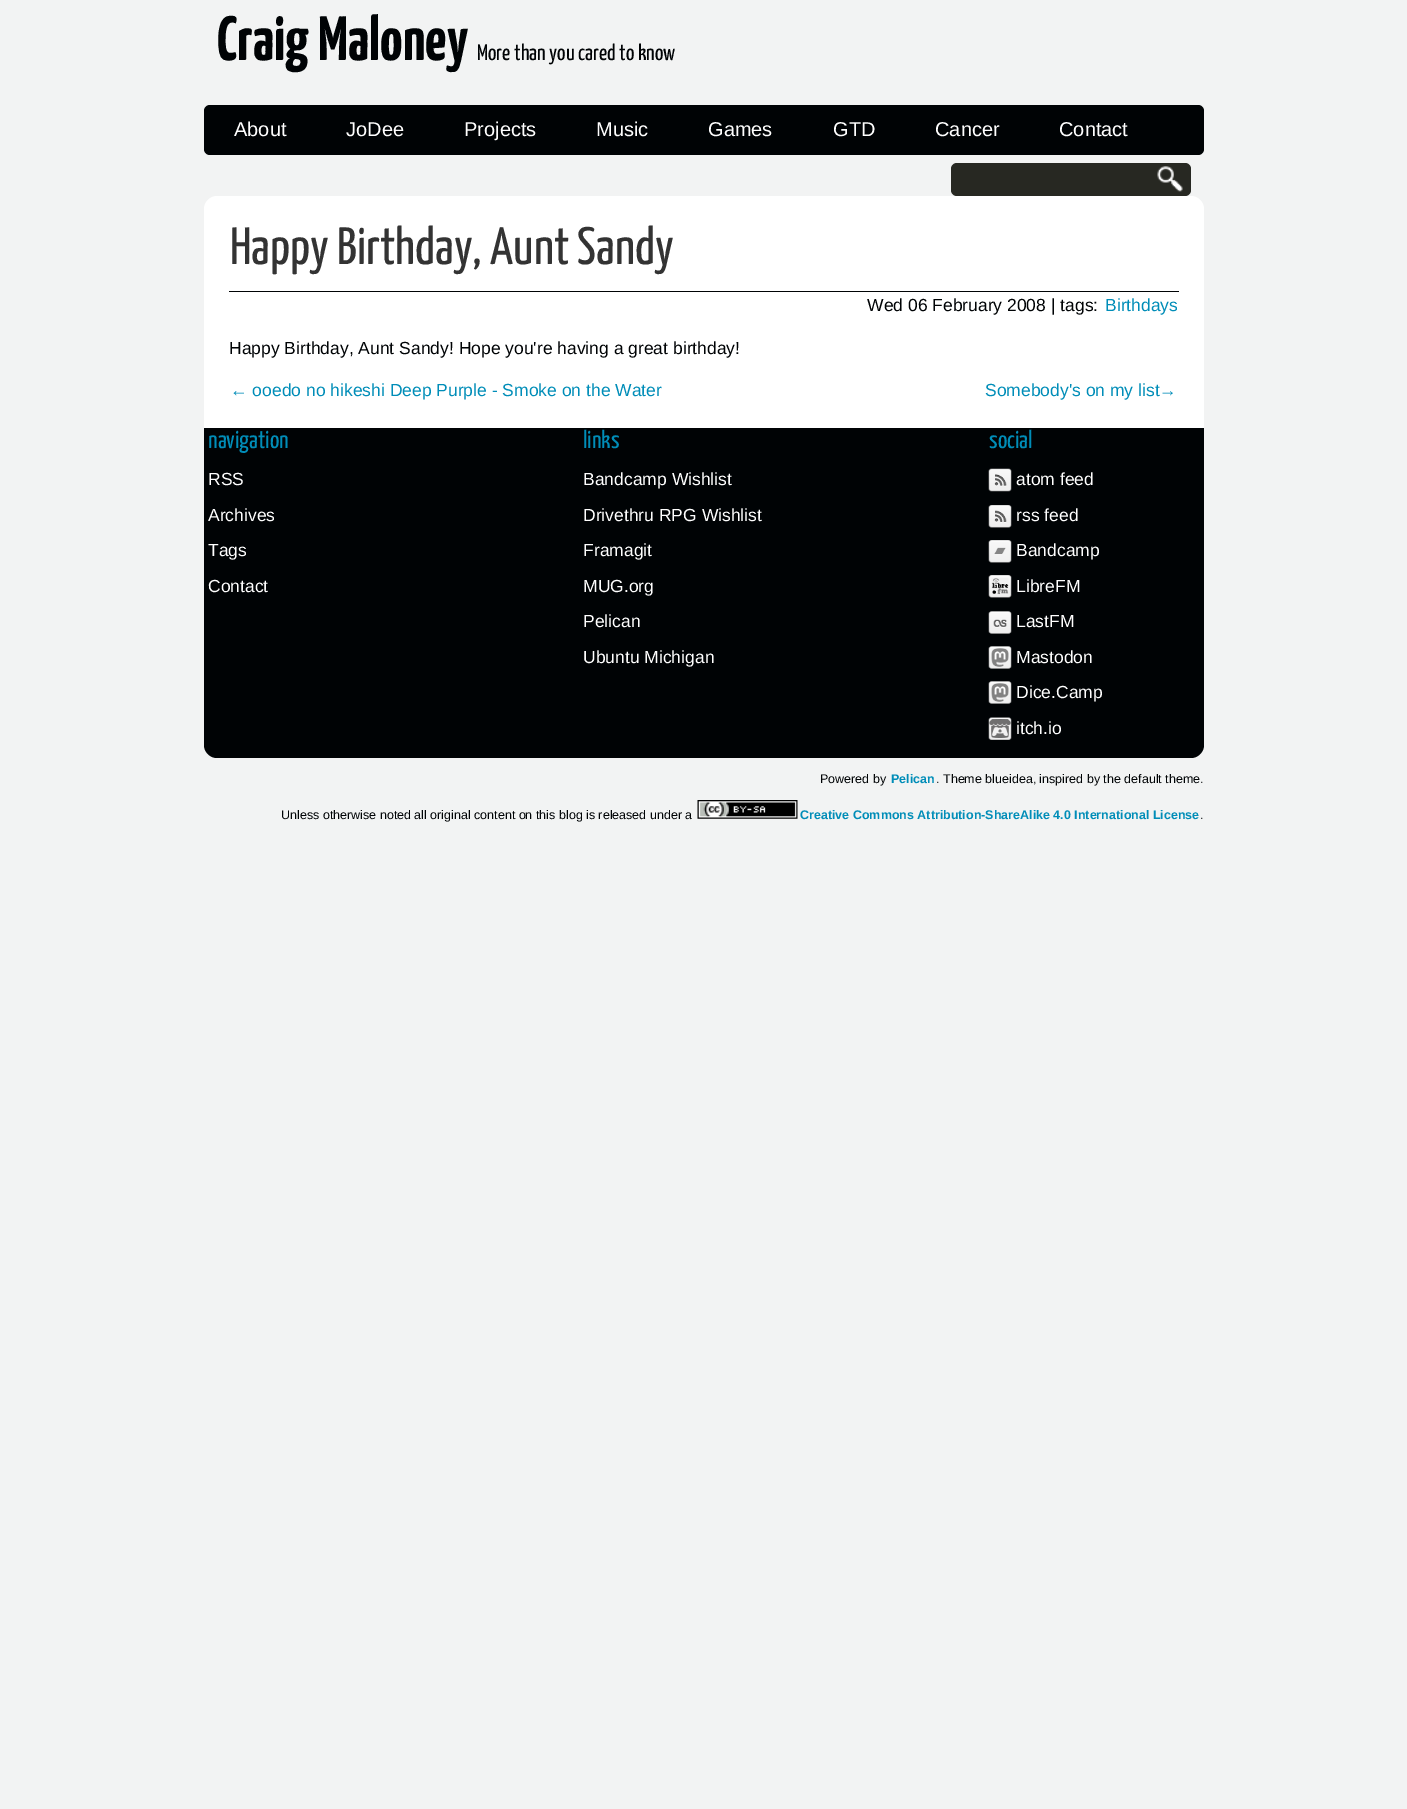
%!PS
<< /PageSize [1407 1809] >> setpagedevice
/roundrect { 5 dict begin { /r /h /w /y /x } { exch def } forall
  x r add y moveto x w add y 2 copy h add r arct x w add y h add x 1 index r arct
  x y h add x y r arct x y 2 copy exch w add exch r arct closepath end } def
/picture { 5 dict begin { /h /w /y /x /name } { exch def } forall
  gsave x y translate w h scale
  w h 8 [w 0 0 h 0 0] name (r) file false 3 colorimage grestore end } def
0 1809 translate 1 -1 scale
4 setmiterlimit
0.949 0.953 0.953 setrgbcolor
0 0 1407 1809 rectfill
/YanoneKaffeesatz-Bold [62.5 0 0 -62.5 0 0] selectfont
0 0.012 0.02 setrgbcolor
217 60 moveto (Craig Maloney) show
/YanoneKaffeesatz-Regular [22.5 0 0 -22.5 0 0] selectfont
477 60 moveto (More than you cared to know) show
204 105 1000 50 6 roundrect fill
/LiberationSans-Regular [20 0 0 -20 0 0] selectfont
1 setgray
234 136 moveto (About) show
346 136 moveto (JoDee) show
464 136 moveto (Projects) show
596 136 moveto (Music) show
708 136 moveto (Games) show
833 136 moveto (GTD) show
935 136 moveto (Cancer) show
1059 136 moveto (Contact) show
0.153 0.157 0.133 setrgbcolor
951 163 240 33 6 roundrect fill
(img1.rgb) 1157 166 26 26 picture
1 setgray
newpath 217 196 moveto 1191 196 lineto 1198 196 1204 202 1204 209 curveto 1204 428 lineto 204 428 lineto 204 209 lineto 204 202 210 196 217 196 curveto closepath fill
/YanoneKaffeesatz-Regular [52.5 0 0 -52.5 0 0] selectfont
0.2 setgray
230 264 moveto (Happy Birthday, Aunt Sandy) show
0 0.012 0.02 setrgbcolor
229 291 950 1 rectfill
/LiberationSans-Regular [17.5 0 0 -17.5 0 0] selectfont
867 311 moveto (Wed 06 February 2008 | tags:) show
0 0.553 0.722 setrgbcolor
1105 311 moveto (Birthdays) show
0 0.012 0.02 setrgbcolor
229 354 moveto (Happy Birthday, Aunt Sandy! Hope you're having a great birthday!) show
0 0.553 0.722 setrgbcolor
230 396 moveto (← ooedo no hikeshi Deep Purple - Smoke on the Water) show
985 396 moveto (Somebody's on my list→) show
0 0.012 0.02 setrgbcolor
newpath 204 428 moveto 1204 428 lineto 1204 745 lineto 1204 752 1198 758 1191 758 curveto 217 758 lineto 210 758 204 752 204 745 curveto closepath fill
/YanoneKaffeesatz-Regular [25 0 0 -25 0 0] selectfont
0 0.553 0.722 setrgbcolor
208 448 moveto (navigation) show
/LiberationSans-Regular [17.5 0 0 -17.5 0 0] selectfont
1 setgray
208 485 moveto (RSS) show
208 521 moveto (Archives) show
208 556 moveto (Tags) show
208 592 moveto (Contact) show
/YanoneKaffeesatz-Regular [25 0 0 -25 0 0] selectfont
0 0.553 0.722 setrgbcolor
583 448 moveto (links) show
/LiberationSans-Regular [17.5 0 0 -17.5 0 0] selectfont
1 setgray
583 485 moveto (Bandcamp Wishlist) show
583 521 moveto (Drivethru RPG Wishlist) show
583 556 moveto (Framagit) show
583 592 moveto (MUG.org) show
583 627 moveto (Pelican) show
583 663 moveto (Ubuntu Michigan) show
/YanoneKaffeesatz-Regular [25 0 0 -25 0 0] selectfont
0 0.553 0.722 setrgbcolor
989 448 moveto (social) show
(img2.rgb) 988 468 24 24 picture
/LiberationSans-Regular [17.5 0 0 -17.5 0 0] selectfont
1 setgray
1016 485 moveto (atom feed) show
(img3.rgb) 988 505 24 23 picture
1016 521 moveto (rss feed) show
(img4.rgb) 988 540 24 23 picture
1016 556 moveto (Bandcamp) show
(img5.rgb) 988 575 24 23 picture
1016 592 moveto (LibreFM) show
(img6.rgb) 988 611 24 23 picture
1016 627 moveto (LastFM) show
(img7.rgb) 988 646 24 23 picture
1016 663 moveto (Mastodon) show
(img8.rgb) 988 681 24 23 picture
1016 698 moveto (Dice.Camp) show
(img9.rgb) 988 717 24 23 picture
1016 734 moveto (itch.io) show
/LiberationSans-Regular [12.5 0 0 -12.5 0 0] selectfont
0 0.012 0.02 setrgbcolor
820 783 moveto (Powered by) show
/LiberationSans-Bold [12.5 0 0 -12.5 0 0] selectfont
0 0.553 0.722 setrgbcolor
891 783 moveto (Pelican) show
/LiberationSans-Regular [12.5 0 0 -12.5 0 0] selectfont
0 0.012 0.02 setrgbcolor
936 783 moveto (. Theme blueidea, inspired by the default theme.) show
281 819 moveto (Unless otherwise noted all original content on this blog is released under a) show
(img10.rgb) 697 800 101 19 picture
/LiberationSans-Bold [12.5 0 0 -12.5 0 0] selectfont
0 0.553 0.722 setrgbcolor
800 819 moveto (Creative Commons Attribution-ShareAlike 4.0 International License) show
/LiberationSans-Regular [12.5 0 0 -12.5 0 0] selectfont
0 0.012 0.02 setrgbcolor
1200 819 moveto (.) show
showpage
